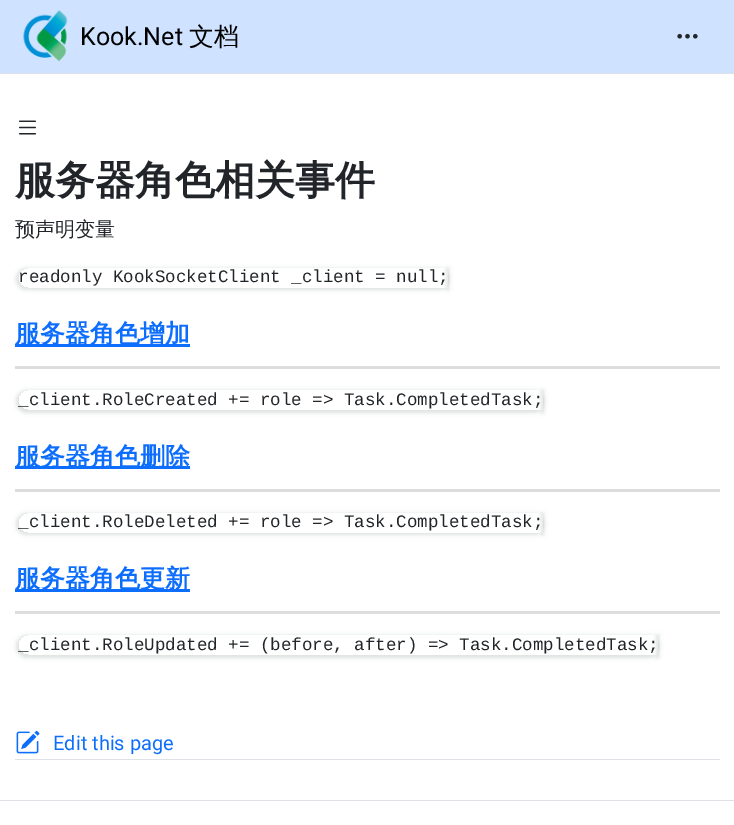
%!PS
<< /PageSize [734 825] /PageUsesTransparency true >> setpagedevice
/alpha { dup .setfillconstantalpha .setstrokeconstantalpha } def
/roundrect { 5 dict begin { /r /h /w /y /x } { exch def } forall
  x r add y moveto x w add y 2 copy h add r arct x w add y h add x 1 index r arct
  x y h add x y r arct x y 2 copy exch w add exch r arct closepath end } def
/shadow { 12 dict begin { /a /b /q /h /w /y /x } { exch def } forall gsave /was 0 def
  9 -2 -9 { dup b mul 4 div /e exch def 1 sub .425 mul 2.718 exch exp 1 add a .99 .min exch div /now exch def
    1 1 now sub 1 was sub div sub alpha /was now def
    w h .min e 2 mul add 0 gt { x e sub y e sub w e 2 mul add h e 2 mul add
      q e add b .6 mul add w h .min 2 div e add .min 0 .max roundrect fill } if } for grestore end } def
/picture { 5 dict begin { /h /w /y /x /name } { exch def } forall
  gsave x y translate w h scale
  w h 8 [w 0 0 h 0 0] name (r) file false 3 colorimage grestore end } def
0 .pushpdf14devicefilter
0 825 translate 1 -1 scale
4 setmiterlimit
1 setgray
0 0 734 825 rectfill
0.871 0.886 0.902 setrgbcolor
0 73 734 1 rectfill
0.812 0.886 1 setrgbcolor
0 0 734 73 rectfill
(img1.rgb) 23 10 45 52 picture
/Roboto-Regular [25 0 0 -25 0 0] selectfont
0 setgray
80 45 moveto (Kook.Net) show
/WenQuanYiZenHei-Medium [25 0 0 -25 0 0] selectfont
189 45 moveto (文档) show
(img2.rgb) 677 33 21 6 picture
(img3.rgb) 19 120 17 15 picture
/WenQuanYiZenHei-Bold [40 0 0 -40 0 0] selectfont
0.129 0.145 0.161 setrgbcolor
15 194 moveto (服务器角色相关事件) show
/WenQuanYiZenHei-Medium [20 0 0 -20 0 0] selectfont
15 236 moveto (预声明变量) show
gsave
newpath 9 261 moveto 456 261 lineto 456 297 lineto 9 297 lineto closepath 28 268 moveto 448 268 lineto 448 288 lineto 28 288 lineto 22.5 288 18 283.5 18 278 curveto 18 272.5 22.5 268 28 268 curveto closepath eoclip newpath
0.239 0.255 0.267 setrgbcolor
16 268 433 22 11 2 0.16 shadow
grestore
0.239 0.255 0.267 setrgbcolor
446 268 3 22 0 2 0.16 shadow
/LiberationMono-Regular [17.5 0 0 -17.5 0 0] selectfont
0.129 0.145 0.161 setrgbcolor
18 282 moveto (readonly KookSocketClient _client = null;) show
0.867 setgray
15 366 705 3 rectfill
0.051 0.431 0.992 setrgbcolor
15 344 175 3 rectfill
/WenQuanYiZenHei-Bold [25 0 0 -25 0 0] selectfont
15 342 moveto (服务器角色增加) show
gsave
newpath 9 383 moveto 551 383 lineto 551 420 lineto 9 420 lineto closepath 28 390 moveto 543 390 lineto 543 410 lineto 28 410 lineto 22.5 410 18 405.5 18 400 curveto 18 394.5 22.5 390 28 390 curveto closepath eoclip newpath
0.239 0.255 0.267 setrgbcolor
16 390 528 23 11.5 2 0.16 shadow
grestore
0.239 0.255 0.267 setrgbcolor
541 390 3 23 0 2 0.16 shadow
/LiberationMono-Regular [17.5 0 0 -17.5 0 0] selectfont
0.129 0.145 0.161 setrgbcolor
18 405 moveto (_client.RoleCreated += role => Task.CompletedTask;) show
0.867 setgray
15 489 705 3 rectfill
0.051 0.431 0.992 setrgbcolor
15 466 175 3 rectfill
/WenQuanYiZenHei-Bold [25 0 0 -25 0 0] selectfont
15 465 moveto (服务器角色删除) show
gsave
newpath 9 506 moveto 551 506 lineto 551 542 lineto 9 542 lineto closepath 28 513 moveto 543 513 lineto 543 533 lineto 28 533 lineto 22.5 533 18 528.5 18 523 curveto 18 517.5 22.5 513 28 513 curveto closepath eoclip newpath
0.239 0.255 0.267 setrgbcolor
16 513 528 22 11 2 0.16 shadow
grestore
0.239 0.255 0.267 setrgbcolor
541 513 3 22 0 2 0.16 shadow
/LiberationMono-Regular [17.5 0 0 -17.5 0 0] selectfont
0.129 0.145 0.161 setrgbcolor
18 527 moveto (_client.RoleDeleted += role => Task.CompletedTask;) show
0.867 setgray
15 611 705 3 rectfill
0.051 0.431 0.992 setrgbcolor
15 589 175 3 rectfill
/WenQuanYiZenHei-Bold [25 0 0 -25 0 0] selectfont
15 587 moveto (服务器角色更新) show
gsave
newpath 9 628 moveto 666 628 lineto 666 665 lineto 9 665 lineto closepath 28 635 moveto 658 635 lineto 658 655 lineto 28 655 lineto 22.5 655 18 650.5 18 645 curveto 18 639.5 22.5 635 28 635 curveto closepath eoclip newpath
0.239 0.255 0.267 setrgbcolor
16 635 643 23 11.5 2 0.16 shadow
grestore
0.239 0.255 0.267 setrgbcolor
656 635 3 23 0 2 0.16 shadow
/LiberationMono-Regular [17.5 0 0 -17.5 0 0] selectfont
0.129 0.145 0.161 setrgbcolor
18 650 moveto (_client.RoleUpdated += \(before, after\) => Task.CompletedTask;) show
(img4.rgb) 16 730 24 24 picture
/Roboto-Regular [20 0 0 -20 0 0] selectfont
0.051 0.431 0.992 setrgbcolor
53 750 moveto (Edit this page) show
0.871 0.886 0.902 setrgbcolor
15 759 705 1 rectfill
0 800 734 1 rectfill
.poppdf14devicefilter showpage
